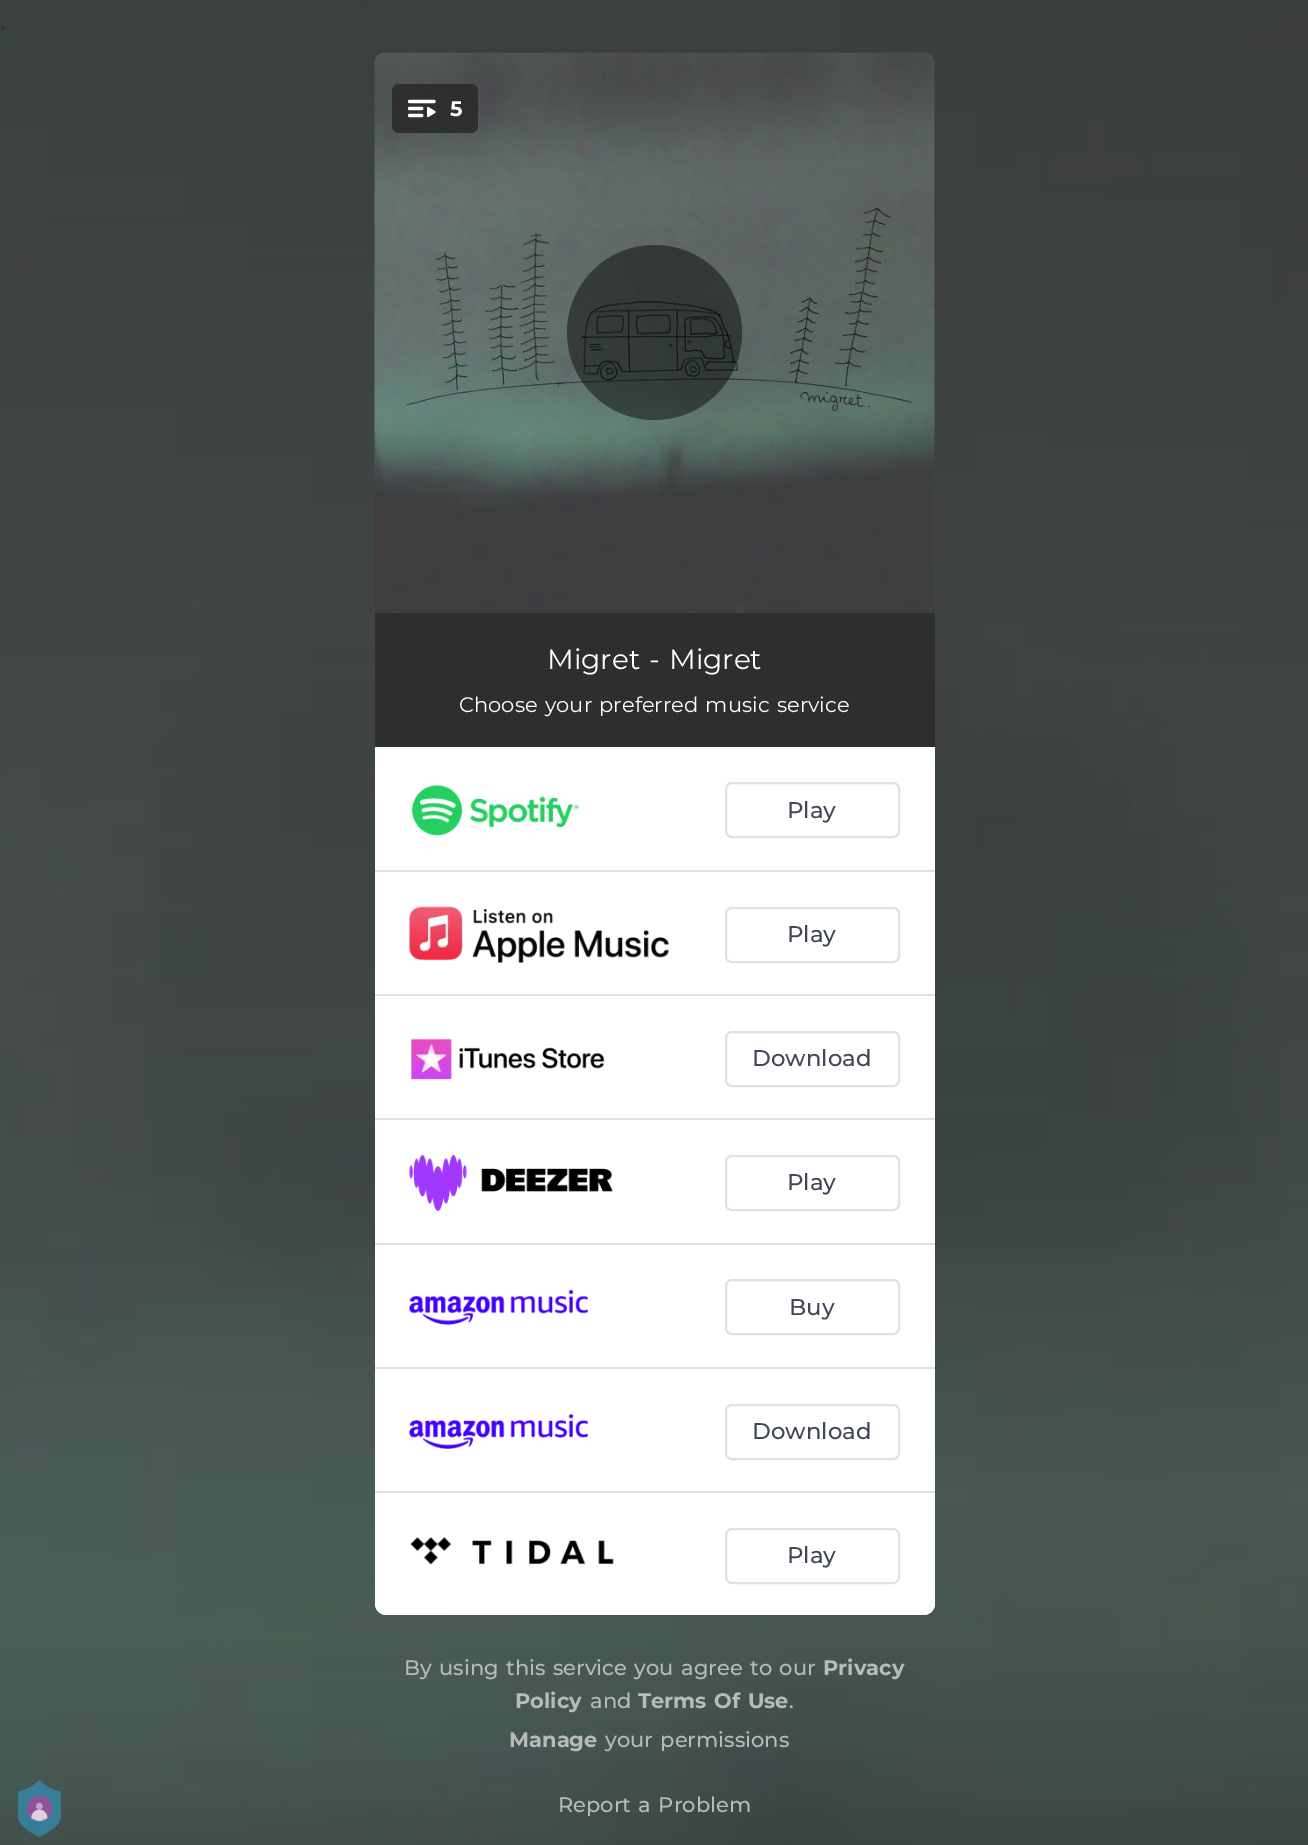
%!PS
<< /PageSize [1308 1845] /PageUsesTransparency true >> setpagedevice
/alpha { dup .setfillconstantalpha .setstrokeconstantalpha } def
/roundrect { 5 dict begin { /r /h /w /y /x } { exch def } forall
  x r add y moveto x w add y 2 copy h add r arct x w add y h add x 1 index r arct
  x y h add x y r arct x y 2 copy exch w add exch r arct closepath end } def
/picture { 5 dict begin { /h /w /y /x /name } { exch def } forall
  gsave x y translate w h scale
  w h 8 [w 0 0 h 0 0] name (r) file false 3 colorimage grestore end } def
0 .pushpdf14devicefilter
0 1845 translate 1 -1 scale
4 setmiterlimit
1 setgray
0 0 1308 1845 rectfill
(img2.rgb) 0 0 1308 1845 picture
(img1.rgb) 18 1780 43 58 picture
(img3.rgb) 374 52 561 561 picture
0.85 alpha
0.157 setgray
392 84 86 49 7 roundrect fill
1 alpha
(img4.rgb) 408 99 28 19 picture
/Montserrat-Bold [21 0 0 -21 0 0] selectfont
1 setgray
450 116 moveto (5) show
0.45 alpha
0 setgray
newpath 654.5 332.5 87.5 0 360 arc closepath fill
1 alpha
0.18 setgray
375 613 560 134 rectfill
/Montserrat-Regular [28 0 0 -28 0 0] selectfont
1 setgray
547 669 moveto 1.75 0 32 (Migret - Migret) widthshow
/Montserrat-Regular [21 0 0 -21 0 0] selectfont
459 712 moveto 1.75 0 32 (Choose your preferred music service) widthshow
newpath 375 747 moveto 935 747 lineto 935 1604 lineto 935 1610 930 1615 924 1615 curveto 386 1615 lineto 380 1615 375 1610 375 1604 curveto closepath fill
0.882 0.882 0.894 setrgbcolor
375 870 560 2 rectfill
(img5.rgb) 411 784 169 52 picture
2 setlinewidth
726 783 173 54 6 roundrect stroke
/Montserrat-Medium [22.75 0 0 -22.75 0 0] selectfont
0.255 0.278 0.329 setrgbcolor
787 818 moveto (Play) show
0.882 0.882 0.894 setrgbcolor
375 994 560 2 rectfill
(img6.rgb) 409 906 260 57 picture
726 908 173 54 6 roundrect stroke
0.255 0.278 0.329 setrgbcolor
787 942 moveto (Play) show
0.882 0.882 0.894 setrgbcolor
375 1118 560 2 rectfill
(img7.rgb) 411 1038 194 42 picture
726 1032 173 54 6 roundrect stroke
0.255 0.278 0.329 setrgbcolor
752 1066 moveto (Download) show
0.882 0.882 0.894 setrgbcolor
375 1243 560 2 rectfill
(img8.rgb) 409 1155 204 56 picture
726 1156 173 54 6 roundrect stroke
0.255 0.278 0.329 setrgbcolor
787 1190 moveto (Play) show
0.882 0.882 0.894 setrgbcolor
375 1367 560 2 rectfill
(img9.rgb) 409 1289 179 36 picture
726 1280 173 54 6 roundrect stroke
0.255 0.278 0.329 setrgbcolor
789 1315 moveto (Buy) show
0.882 0.882 0.894 setrgbcolor
375 1491 560 2 rectfill
(img10.rgb) 409 1414 179 35 picture
726 1405 173 54 6 roundrect stroke
0.255 0.278 0.329 setrgbcolor
752 1439 moveto (Download) show
(img11.rgb) 410 1537 204 28 picture
0.882 0.882 0.894 setrgbcolor
726 1529 173 54 6 roundrect stroke
0.255 0.278 0.329 setrgbcolor
787 1563 moveto (Play) show
/Montserrat-Medium [21 0 0 -21 0 0] selectfont
0.71 0.737 0.725 setrgbcolor
404 1675 moveto 1.75 0 32 (By using this service you agree to our) widthshow
/Montserrat-Bold [21 0 0 -21 0 0] selectfont
823 1675 moveto (Privacy) show
515 1708 moveto (Policy) show
/Montserrat-Medium [21 0 0 -21 0 0] selectfont
590 1708 moveto (and) show
/Montserrat-Bold [21 0 0 -21 0 0] selectfont
638 1708 moveto 1.75 0 32 (Terms Of Use) widthshow
/Montserrat-Medium [21 0 0 -21 0 0] selectfont
789 1708 moveto (.) show
/Montserrat-Bold [21 0 0 -21 0 0] selectfont
509 1747 moveto (Manage) show
/Montserrat-Medium [21 0 0 -21 0 0] selectfont
605 1747 moveto 1.75 0 32 (your permissions) widthshow
558 1812 moveto 1.75 0 32 (Report a Problem) widthshow
.poppdf14devicefilter showpage
